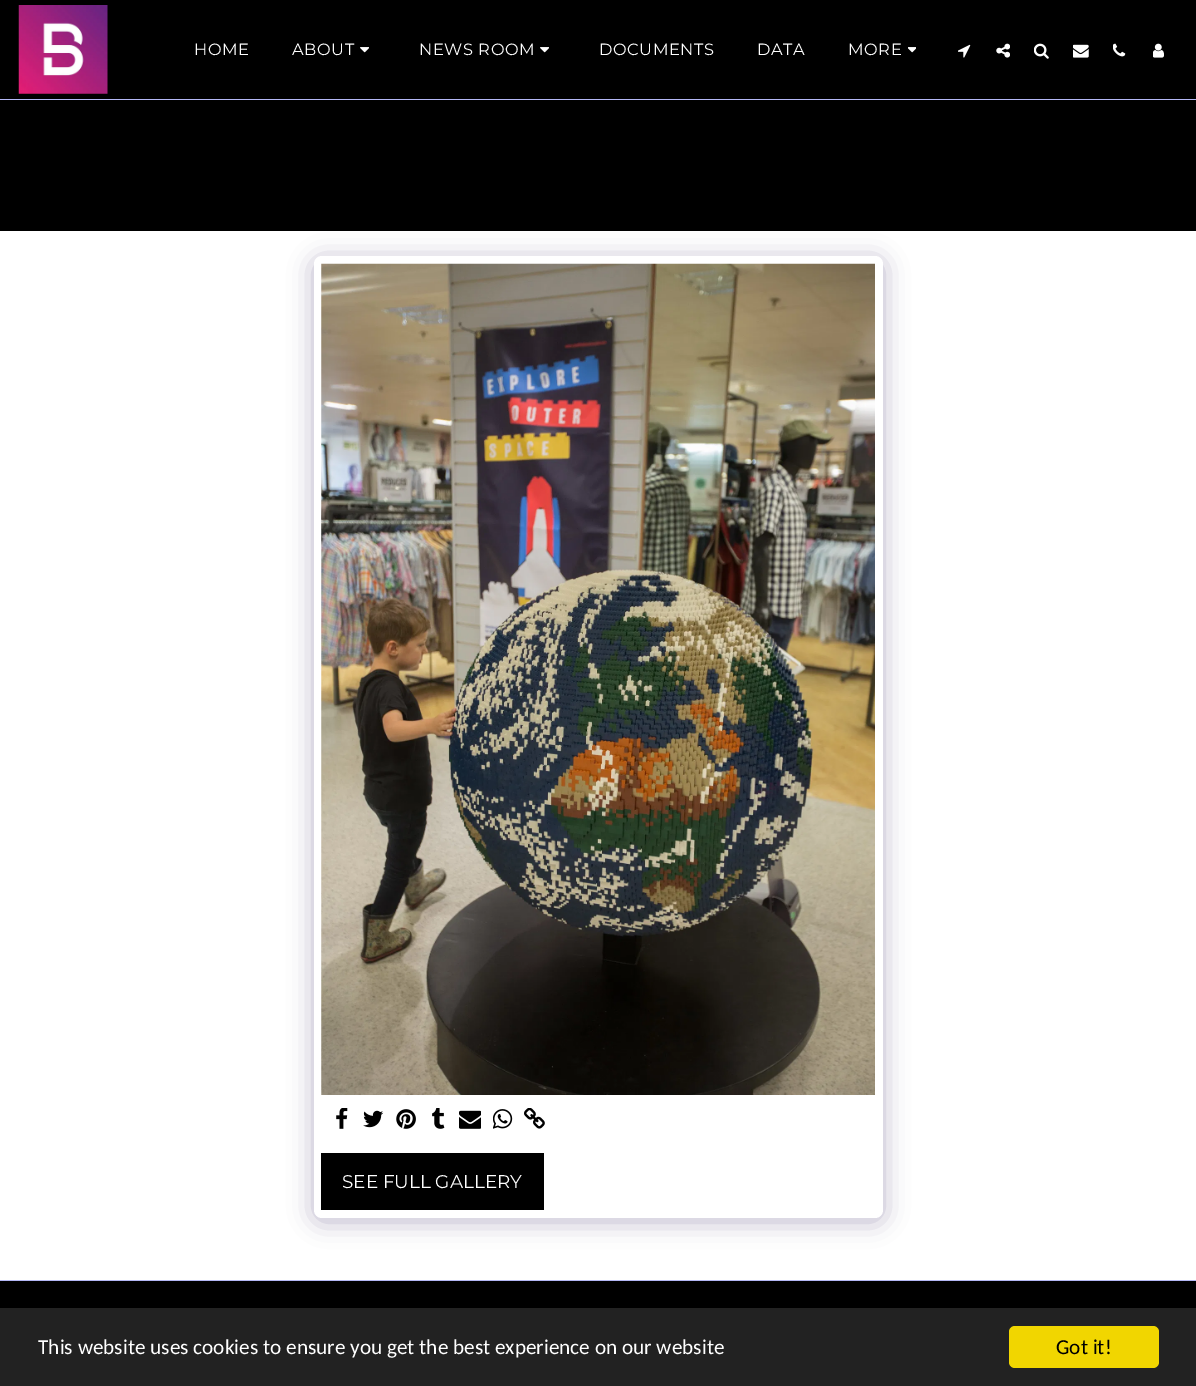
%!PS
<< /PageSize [1196 1386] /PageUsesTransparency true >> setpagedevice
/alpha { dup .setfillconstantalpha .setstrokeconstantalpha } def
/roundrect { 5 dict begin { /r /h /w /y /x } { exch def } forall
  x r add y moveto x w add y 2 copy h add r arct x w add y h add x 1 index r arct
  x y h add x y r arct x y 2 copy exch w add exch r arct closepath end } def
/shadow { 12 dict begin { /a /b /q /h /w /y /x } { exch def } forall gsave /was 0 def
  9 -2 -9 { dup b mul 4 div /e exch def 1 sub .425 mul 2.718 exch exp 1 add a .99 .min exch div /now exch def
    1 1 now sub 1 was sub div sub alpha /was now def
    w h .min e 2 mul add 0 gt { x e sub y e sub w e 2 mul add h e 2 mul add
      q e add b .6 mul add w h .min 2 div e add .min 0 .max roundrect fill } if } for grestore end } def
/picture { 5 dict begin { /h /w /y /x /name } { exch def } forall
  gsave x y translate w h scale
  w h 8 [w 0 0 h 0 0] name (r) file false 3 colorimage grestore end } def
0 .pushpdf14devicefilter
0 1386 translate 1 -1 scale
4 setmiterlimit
1 setgray
0 0 1196 1386 rectfill
0 setgray
0 0 1196 99 rectfill
0.706 0.722 0.961 setrgbcolor
0 99 1196 1 rectfill
(img1.rgb) 18 5 90 89 picture
/Montserrat-Regular [16.25 0 0 -16.25 0 0] selectfont
1 setgray
194 55 moveto 0.6 0 (HOME) ashow
292 55 moveto 0.6 0 (ABOUT) ashow
(img2.rgb) 360 47 9 6 picture
419 55 moveto 0.6 0 (NEWS ROOM) ashow
(img2.rgb) 540 47 9 6 picture
599 55 moveto 0.6 0 (DOCUMENTS) ashow
757 55 moveto 0.6 0 (DATA) ashow
848 55 moveto 0.6 0 (MORE) ashow
(img3.rgb) 908 47 8 6 picture
(img4.rgb) 958 44 13 14 picture
(img5.rgb) 996 43 14 15 picture
(img6.rgb) 1034 43 15 16 picture
(img7.rgb) 1073 44 16 14 picture
(img8.rgb) 1113 43 13 14 picture
(img9.rgb) 1153 43 11 15 picture
0 setgray
0 100 1196 131 rectfill
0.302 0.247 0.478 setrgbcolor
314 260 569 961 8 12.5 0.4 shadow
1 setgray
314 256 569 962 8 roundrect fill
(img10.rgb) 321 263 554 832 picture
(img11.rgb) 336 1108 12 21 picture
(img12.rgb) 363 1110 21 18 picture
(img13.rgb) 396 1109 20 20 picture
(img14.rgb) 432 1108 13 21 picture
(img15.rgb) 459 1110 22 19 picture
(img16.rgb) 493 1109 20 20 picture
(img17.rgb) 524 1108 21 21 picture
0 setgray
321 1153 223 57 rectfill
/Montserrat-Regular [18.4 0 0 -18.4 0 0] selectfont
1 setgray
342 1188 moveto (SEE FULL GALLERY) show
0.706 0.722 0.961 setrgbcolor
0 1280 1196 1 rectfill
0 setgray
0 1281 1196 27 rectfill
0.133 setgray
0 1308 1196 78 rectfill
/Carlito-Regular [21.25 0 0 -21.25 0 0] selectfont
1 setgray
38 1354 moveto (This website uses cookies to ensure you get the best experience on our website) show
0.945 0.839 0 setrgbcolor
1009 1326 150 42 6 roundrect fill
0 setgray
1056 1354 moveto (Got it!) show
.poppdf14devicefilter showpage
